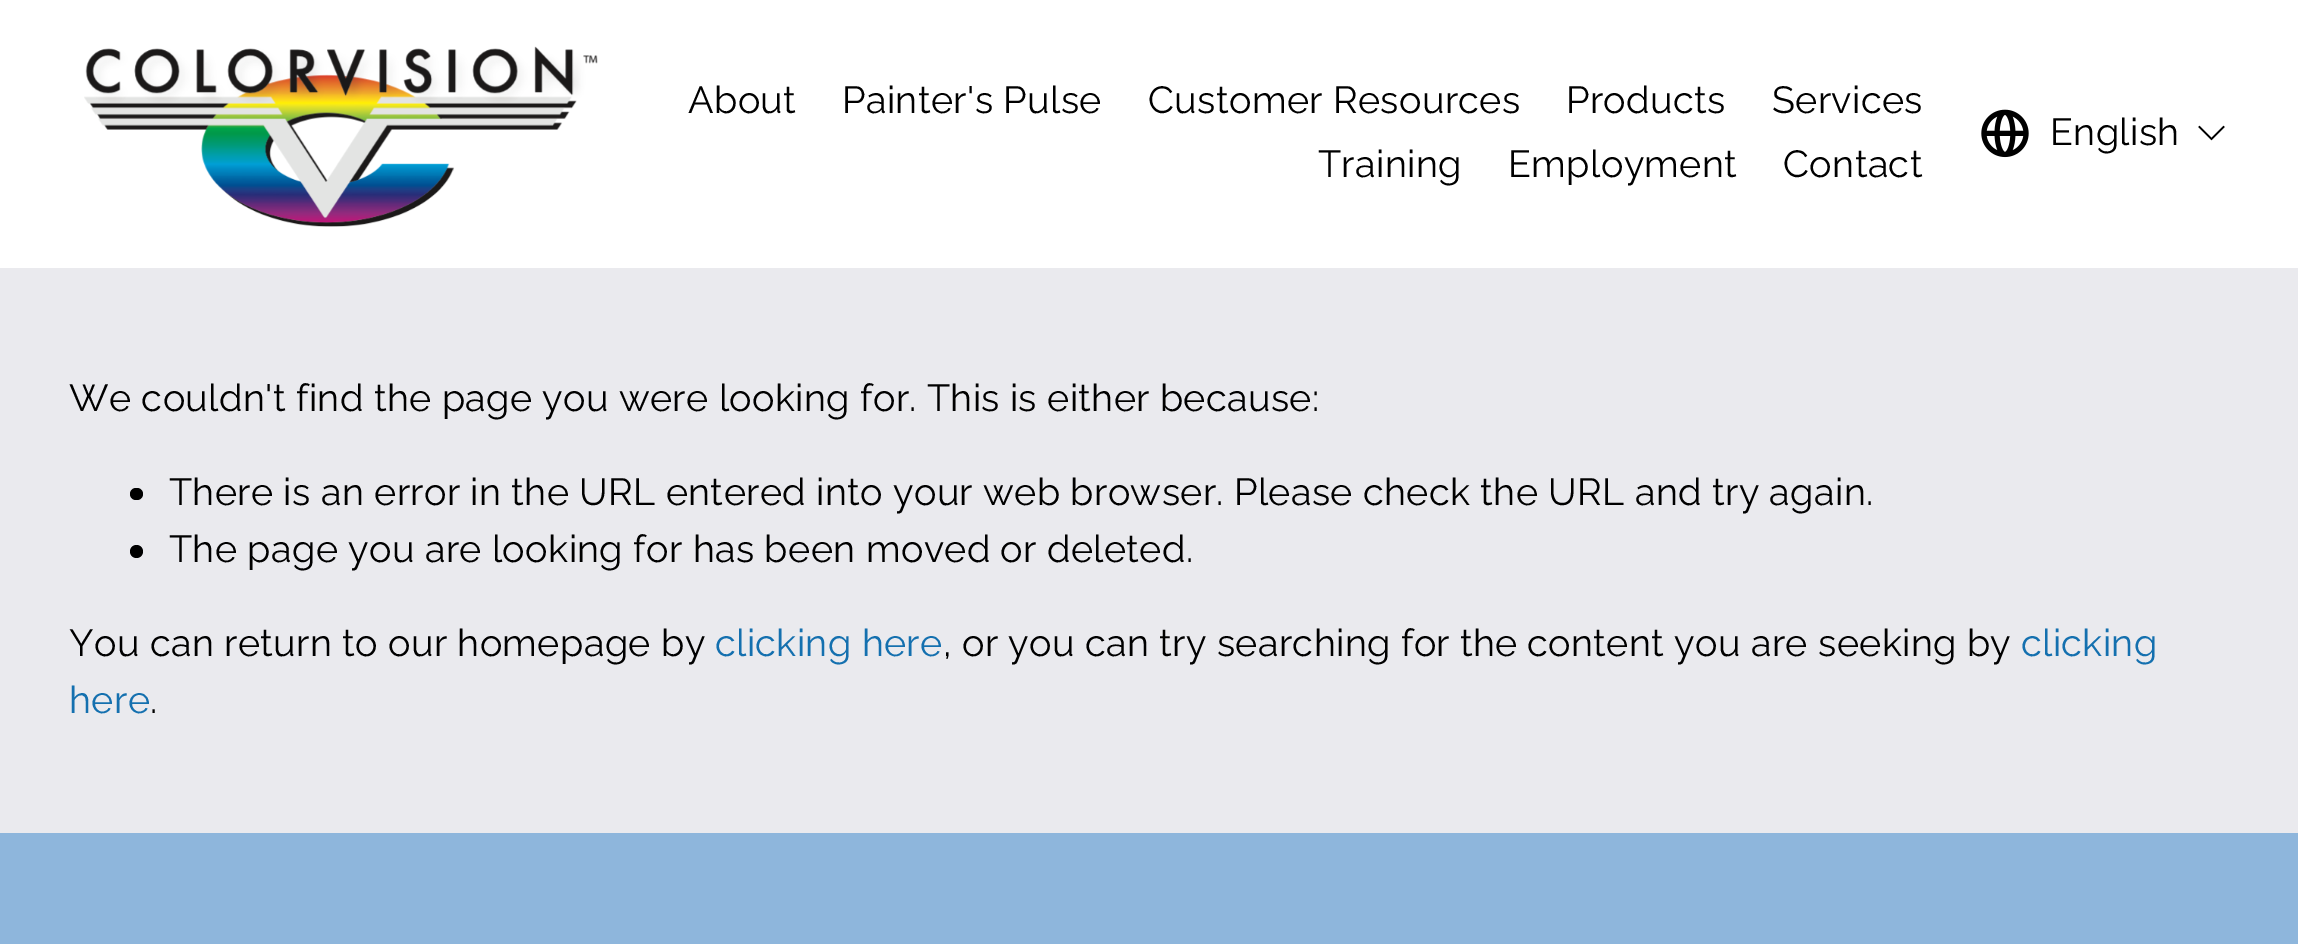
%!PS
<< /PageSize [2298 944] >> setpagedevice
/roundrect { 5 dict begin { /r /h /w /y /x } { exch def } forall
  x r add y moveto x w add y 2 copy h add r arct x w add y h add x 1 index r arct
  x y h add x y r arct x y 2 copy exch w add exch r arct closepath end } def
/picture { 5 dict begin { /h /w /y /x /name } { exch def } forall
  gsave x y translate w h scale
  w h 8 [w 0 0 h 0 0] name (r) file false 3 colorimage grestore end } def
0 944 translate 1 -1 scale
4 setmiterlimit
0.918 0.918 0.933 setrgbcolor
0 0 2298 944 rectfill
1 setgray
0 0 2298 268 rectfill
(img1.rgb) 84 46 514 181 picture
/Raleway-Regular [37.75 0 0 -37.75 0 0] selectfont
0 setgray
688 113 moveto 0.38 0 (About) ashow
842 113 moveto 0.38 0 (Painter's Pulse) ashow
1148 113 moveto 0.38 0 (Customer Resources) ashow
1566 113 moveto 0.38 0 (Products) ashow
1772 113 moveto 0.38 0 (Services) ashow
1318 177 moveto 0.38 0 (Training) ashow
1508 177 moveto 0.38 0 (Employment) ashow
1783 177 moveto 0.38 0 (Contact) ashow
(img2.rgb) 1981 109 48 49 picture
2050 145 moveto 0.38 0 (English) ashow
1.7 setlinewidth
2 setlinecap
newpath 2223.5 127 moveto 2211.5 139 lineto 2199.5 127 lineto stroke
69 411 moveto 0.38 0 (We couldn't find the page you were looking for. This is either because:) ashow
130 488 13 12 6 roundrect fill
169 505 moveto 0.38 0 (There is an error in the URL entered into your web browser. Please check the URL and try again.) ashow
newpath 136.5 551.5 6.5 0 360 arc closepath fill
169 562 moveto 0.38 0 (The page you are looking for has been moved or deleted.) ashow
69 656 moveto 0.38 0 (You can return to our homepage by) ashow
0.078 0.439 0.686 setrgbcolor
715 656 moveto 0.38 0 (clicking here) ashow
0 setgray
943 656 moveto 0.38 0 (, or you can try searching for the) ashow
1527 656 moveto 0.38 0 (content you are seeking by) ashow
0.078 0.439 0.686 setrgbcolor
2021 656 moveto 0.38 0 (clicking) ashow
69 713 moveto 0.38 0 (here) ashow
0 setgray
150 713 moveto 0.38 0 (.) ashow
0.557 0.714 0.863 setrgbcolor
0 833 2298 111 rectfill
showpage
